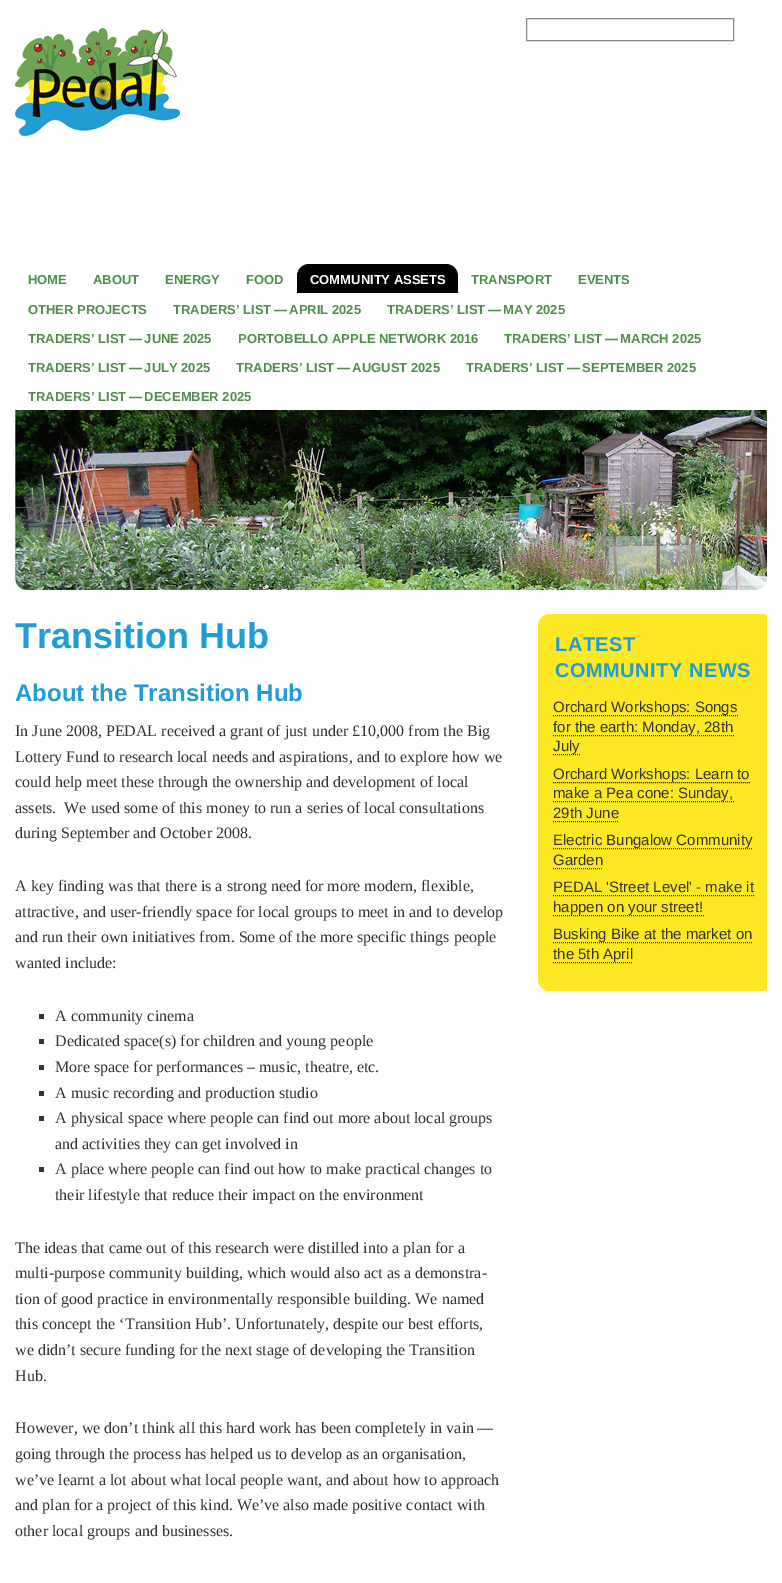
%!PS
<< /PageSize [782 1583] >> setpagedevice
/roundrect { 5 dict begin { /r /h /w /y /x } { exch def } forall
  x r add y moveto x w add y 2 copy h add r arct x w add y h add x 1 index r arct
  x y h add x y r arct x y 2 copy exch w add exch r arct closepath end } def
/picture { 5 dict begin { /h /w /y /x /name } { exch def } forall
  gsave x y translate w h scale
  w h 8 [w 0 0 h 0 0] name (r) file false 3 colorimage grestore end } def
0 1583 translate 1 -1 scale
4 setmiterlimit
1 setgray
0 0 782 1583 rectfill
(img1.rgb) 15 28 165 109 picture
0.533 setgray
526.5 18.5 207 22 rectstroke
/LiberationSans-Bold [13 0 0 -13 0 0] selectfont
0.314 0.557 0.294 setrgbcolor
28 284 moveto (HOME) show
93 284 moveto (ABOUT) show
165 284 moveto (ENERGY) show
246 284 moveto (FOOD) show
0 setgray
newpath 309 264 moveto 446 264 lineto 452.5 264 458 269.5 458 276 curveto 458 293 lineto 297 293 lineto 297 276 lineto 297 269.5 302.5 264 309 264 curveto closepath fill
1 setgray
310 284 moveto (COMMUNITY ASSETS) show
0.314 0.557 0.294 setrgbcolor
471 284 moveto (TRANSPORT) show
578 284 moveto (EVENTS) show
28 314 moveto (OTHER PROJECTS) show
173 314 moveto (TRADERS’ LIST — APRIL 2025) show
387 314 moveto (TRADERS’ LIST — MAY 2025) show
28 343 moveto (TRADERS’ LIST — JUNE 2025) show
238 343 moveto (PORTOBELLO APPLE NETWORK 2016) show
504 343 moveto (TRADERS’ LIST — MARCH 2025) show
28 372 moveto (TRADERS’ LIST — JULY 2025) show
236 372 moveto (TRADERS’ LIST — AUGUST 2025) show
466 372 moveto (TRADERS’ LIST — SEPTEMBER 2025) show
28 401 moveto (TRADERS’ LIST — DECEMBER 2025) show
(img2.rgb) 15 410 752 180 picture
/LiberationSans-Bold [36 0 0 -36 0 0] selectfont
0.129 0.616 0.831 setrgbcolor
15 648 moveto (Transition Hub) show
/LiberationSans-Bold [24 0 0 -24 0 0] selectfont
15 701 moveto (About the Transition Hub) show
/LiberationSerif-Regular [16 0 0 -16 0 0] selectfont
0.2 setgray
15 736 moveto (In June 2008, PEDAL received a grant of just under £10,000 from the Big) show
15 762 moveto (Lottery Fund to research local needs and aspirations, and to explore how we) show
15 787 moveto (could help meet these through the ownership and development of local) show
15 813 moveto (assets.  We used some of this money to run a series of local consultations) show
15 838 moveto (during September and October 2008.) show
15 891 moveto (A key finding was that there is a strong need for more modern, flexible,) show
15 917 moveto (attractive, and user-friendly space for local groups to meet in and to develop) show
15 942 moveto (and run their own initiatives from. Some of the more specific things people) show
15 968 moveto (wanted include:) show
39 1014 5 5 rectfill
55 1021 moveto (A community cinema) show
39 1039 5 5 rectfill
55 1046 moveto (Dedicated space\(s\) for children and young people) show
39 1065 5 5 rectfill
55 1072 moveto (More space for performances – music, theatre, etc.) show
39 1091 5 5 rectfill
55 1098 moveto (A music recording and production studio) show
39 1116 5 5 rectfill
55 1123 moveto (A physical space where people can find out more about local groups) show
55 1149 moveto (and activities they can get involved in) show
39 1167 5 5 rectfill
55 1174 moveto (A place where people can find out how to make practical changes to) show
55 1200 moveto (their lifestyle that reduce their impact on the environment) show
15 1253 moveto (The ideas that came out of this research were distilled into a plan for a) show
15 1278 moveto (multi-purpose community building, which would also act as a demonstra-) show
15 1304 moveto (tion of good practice in environmentally responsible building. We named) show
15 1329 moveto (this concept the ‘Transition Hub’. Unfortunately, despite our best efforts,) show
15 1355 moveto (we didn’t secure funding for the next stage of developing the Transition) show
15 1381 moveto (Hub.) show
15 1433 moveto (However, we don’t think all this hard work has been completely in vain —) show
15 1459 moveto (going through the process has helped us to develop as an organisation,) show
15 1485 moveto (we’ve learnt a lot about what local people want, and about how to approach) show
15 1510 moveto (and plan for a project of this kind. We’ve also made positive contact with) show
15 1536 moveto (other local groups and businesses.) show
gsave
538 614 229 397 rectclip
0.992 0.91 0.145 setrgbcolor
538 614 236 377 12 roundrect fill
grestore
/LiberationSans-Bold [20 0 0 -20 0 0] selectfont
0.129 0.616 0.831 setrgbcolor
555 651 moveto 0.5 0 (LATEST) ashow
555 677 moveto 0.5 0 (COMMUNITY NEWS) ashow
0.2 setgray
[1 1] 0 setdash
newpath 553 715.5 moveto 738 715.5 lineto stroke
/LiberationSans-Regular [15 0 0 -15 0 0] selectfont
553 712 moveto (Orchard Workshops: Songs) show
newpath 553 735.5 moveto 734 735.5 lineto stroke
553 732 moveto (for the earth: Monday, 28th) show
newpath 553 754.5 moveto 580 754.5 lineto stroke
553 751 moveto (July) show
newpath 553 782.5 moveto 750 782.5 lineto stroke
553 779 moveto (Orchard Workshops: Learn to) show
newpath 553 801.5 moveto 734 801.5 lineto stroke
553 798 moveto (make a Pea cone: Sunday,) show
553 818 moveto (29th June) show
newpath 553 821.5 moveto 619 821.5 lineto stroke
newpath 553 848.5 moveto 753 848.5 lineto stroke
553 845 moveto (Electric Bungalow Community) show
553 865 moveto (Garden) show
newpath 553 868.5 moveto 603 868.5 lineto stroke
553 892 moveto (PEDAL 'Street Level' - make it) show
newpath 553 895.5 moveto 754 895.5 lineto stroke
newpath 553 915.5 moveto 704 915.5 lineto stroke
553 912 moveto (happen on your street!) show
newpath 553 942.5 moveto 753 942.5 lineto stroke
553 939 moveto (Busking Bike at the market on) show
newpath 553 962.5 moveto 633 962.5 lineto stroke
553 959 moveto (the 5th April) show
showpage
